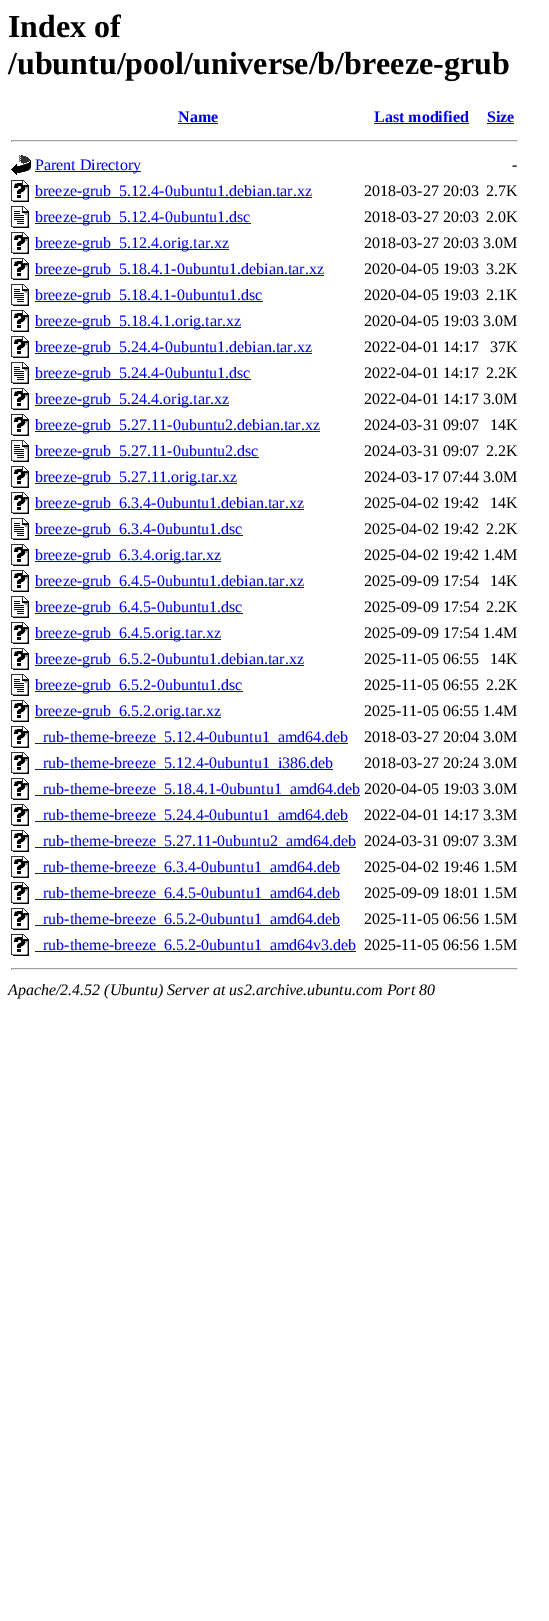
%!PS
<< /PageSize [549 1621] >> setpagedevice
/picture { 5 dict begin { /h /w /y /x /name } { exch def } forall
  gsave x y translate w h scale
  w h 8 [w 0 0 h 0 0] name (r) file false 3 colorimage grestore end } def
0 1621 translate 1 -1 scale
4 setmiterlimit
1 setgray
0 0 549 1621 rectfill
/LiberationSerif-Bold [32 0 0 -32 0 0] selectfont
0 setgray
8 37 moveto (Index of) show
8 74 moveto (/ubuntu/pool/universe/b/breeze-grub) show
/LiberationSerif-Bold [16 0 0 -16 0 0] selectfont
0 0 0.933 setrgbcolor
178 122 moveto (Name) show
178 123 40 1 rectfill
374 122 moveto (Last modified) show
374 123 95 1 rectfill
487 122 moveto (Size) show
487 123 27 1 rectfill
0.624 setgray
11 140 507 1 rectfill
0.933 setgray
517 140 1 2 rectfill
11 141 507 1 rectfill
0.624 setgray
11 140 1 2 rectfill
(img1.rgb) 11 155 20 20 picture
0 0 0.933 setrgbcolor
35 171 106 1 rectfill
/LiberationSerif-Regular [16 0 0 -16 0 0] selectfont
35 170 moveto (Parent Directory) show
0 setgray
512 170 moveto (-) show
(img2.rgb) 11 180 18 22 picture
0 0 0.933 setrgbcolor
35 197 277 1 rectfill
35 196 moveto (breeze-grub_5.12.4-0ubuntu1.debian.tar.xz) show
0 setgray
364 196 moveto (2018-03-27 20:03) show
486 196 moveto (2.7K) show
(img3.rgb) 11 206 18 22 picture
0 0 0.933 setrgbcolor
35 223 216 1 rectfill
35 222 moveto (breeze-grub_5.12.4-0ubuntu1.dsc) show
0 setgray
364 222 moveto (2018-03-27 20:03) show
486 222 moveto (2.0K) show
(img2.rgb) 11 232 18 22 picture
0 0 0.933 setrgbcolor
35 249 194 1 rectfill
35 248 moveto (breeze-grub_5.12.4.orig.tar.xz) show
0 setgray
364 248 moveto (2018-03-27 20:03 3.0M) show
(img2.rgb) 11 258 18 22 picture
0 0 0.933 setrgbcolor
35 275 289 1 rectfill
35 274 moveto (breeze-grub_5.18.4.1-0ubuntu1.debian.tar.xz) show
0 setgray
364 274 moveto (2020-04-05 19:03) show
486 274 moveto (3.2K) show
(img3.rgb) 11 284 18 22 picture
0 0 0.933 setrgbcolor
35 301 228 1 rectfill
35 300 moveto (breeze-grub_5.18.4.1-0ubuntu1.dsc) show
0 setgray
364 300 moveto (2020-04-05 19:03) show
486 300 moveto (2.1K) show
(img2.rgb) 11 310 18 22 picture
0 0 0.933 setrgbcolor
35 327 206 1 rectfill
35 326 moveto (breeze-grub_5.18.4.1.orig.tar.xz) show
0 setgray
364 326 moveto (2020-04-05 19:03 3.0M) show
(img2.rgb) 11 336 18 22 picture
0 0 0.933 setrgbcolor
35 353 277 1 rectfill
35 352 moveto (breeze-grub_5.24.4-0ubuntu1.debian.tar.xz) show
0 setgray
364 352 moveto (2022-04-01 14:17) show
490 352 moveto (37K) show
(img3.rgb) 11 362 18 22 picture
0 0 0.933 setrgbcolor
35 379 216 1 rectfill
35 378 moveto (breeze-grub_5.24.4-0ubuntu1.dsc) show
0 setgray
364 378 moveto (2022-04-01 14:17) show
486 378 moveto (2.2K) show
(img2.rgb) 11 388 18 22 picture
0 0 0.933 setrgbcolor
35 405 194 1 rectfill
35 404 moveto (breeze-grub_5.24.4.orig.tar.xz) show
0 setgray
364 404 moveto (2022-04-01 14:17 3.0M) show
(img2.rgb) 11 414 18 22 picture
0 0 0.933 setrgbcolor
35 431 285 1 rectfill
35 430 moveto (breeze-grub_5.27.11-0ubuntu2.debian.tar.xz) show
0 setgray
364 430 moveto (2024-03-31 09:07) show
490 430 moveto (14K) show
(img3.rgb) 11 440 18 22 picture
0 0 0.933 setrgbcolor
35 457 224 1 rectfill
35 456 moveto (breeze-grub_5.27.11-0ubuntu2.dsc) show
0 setgray
364 456 moveto (2024-03-31 09:07) show
486 456 moveto (2.2K) show
(img2.rgb) 11 466 18 22 picture
0 0 0.933 setrgbcolor
35 483 202 1 rectfill
35 482 moveto (breeze-grub_5.27.11.orig.tar.xz) show
0 setgray
364 482 moveto (2024-03-17 07:44 3.0M) show
(img2.rgb) 11 492 18 22 picture
0 0 0.933 setrgbcolor
35 509 269 1 rectfill
35 508 moveto (breeze-grub_6.3.4-0ubuntu1.debian.tar.xz) show
0 setgray
364 508 moveto (2025-04-02 19:42) show
490 508 moveto (14K) show
(img3.rgb) 11 518 18 22 picture
0 0 0.933 setrgbcolor
35 535 208 1 rectfill
35 534 moveto (breeze-grub_6.3.4-0ubuntu1.dsc) show
0 setgray
364 534 moveto (2025-04-02 19:42) show
486 534 moveto (2.2K) show
(img2.rgb) 11 544 18 22 picture
0 0 0.933 setrgbcolor
35 561 186 1 rectfill
35 560 moveto (breeze-grub_6.3.4.orig.tar.xz) show
0 setgray
364 560 moveto (2025-04-02 19:42 1.4M) show
(img2.rgb) 11 570 18 22 picture
0 0 0.933 setrgbcolor
35 587 269 1 rectfill
35 586 moveto (breeze-grub_6.4.5-0ubuntu1.debian.tar.xz) show
0 setgray
364 586 moveto (2025-09-09 17:54) show
490 586 moveto (14K) show
(img3.rgb) 11 596 18 22 picture
0 0 0.933 setrgbcolor
35 613 208 1 rectfill
35 612 moveto (breeze-grub_6.4.5-0ubuntu1.dsc) show
0 setgray
364 612 moveto (2025-09-09 17:54) show
486 612 moveto (2.2K) show
(img2.rgb) 11 622 18 22 picture
0 0 0.933 setrgbcolor
35 639 186 1 rectfill
35 638 moveto (breeze-grub_6.4.5.orig.tar.xz) show
0 setgray
364 638 moveto (2025-09-09 17:54 1.4M) show
(img2.rgb) 11 648 18 22 picture
0 0 0.933 setrgbcolor
35 665 269 1 rectfill
35 664 moveto (breeze-grub_6.5.2-0ubuntu1.debian.tar.xz) show
0 setgray
364 664 moveto (2025-11-05 06:55) show
490 664 moveto (14K) show
(img3.rgb) 11 674 18 22 picture
0 0 0.933 setrgbcolor
35 691 208 1 rectfill
35 690 moveto (breeze-grub_6.5.2-0ubuntu1.dsc) show
0 setgray
364 690 moveto (2025-11-05 06:55) show
486 690 moveto (2.2K) show
(img2.rgb) 11 700 18 22 picture
0 0 0.933 setrgbcolor
35 717 186 1 rectfill
35 716 moveto (breeze-grub_6.5.2.orig.tar.xz) show
0 setgray
364 716 moveto (2025-11-05 06:55 1.4M) show
(img2.rgb) 11 726 18 22 picture
0 0 0.933 setrgbcolor
35 743 313 1 rectfill
43 742 moveto (rub-theme-breeze_5.12.4-0ubuntu1_amd64.deb) show
0 setgray
364 742 moveto (2018-03-27 20:04 3.0M) show
(img2.rgb) 11 752 18 22 picture
0 0 0.933 setrgbcolor
35 769 298 1 rectfill
43 768 moveto (rub-theme-breeze_5.12.4-0ubuntu1_i386.deb) show
0 setgray
364 768 moveto (2018-03-27 20:24 3.0M) show
(img2.rgb) 11 778 18 22 picture
0 0 0.933 setrgbcolor
35 795 325 1 rectfill
43 794 moveto (rub-theme-breeze_5.18.4.1-0ubuntu1_amd64.deb) show
0 setgray
364 794 moveto (2020-04-05 19:03 3.0M) show
(img2.rgb) 11 804 18 22 picture
0 0 0.933 setrgbcolor
35 821 313 1 rectfill
43 820 moveto (rub-theme-breeze_5.24.4-0ubuntu1_amd64.deb) show
0 setgray
364 820 moveto (2022-04-01 14:17 3.3M) show
(img2.rgb) 11 830 18 22 picture
0 0 0.933 setrgbcolor
35 847 321 1 rectfill
43 846 moveto (rub-theme-breeze_5.27.11-0ubuntu2_amd64.deb) show
0 setgray
364 846 moveto (2024-03-31 09:07 3.3M) show
(img2.rgb) 11 856 18 22 picture
0 0 0.933 setrgbcolor
35 873 305 1 rectfill
43 872 moveto (rub-theme-breeze_6.3.4-0ubuntu1_amd64.deb) show
0 setgray
364 872 moveto (2025-04-02 19:46 1.5M) show
(img2.rgb) 11 882 18 22 picture
0 0 0.933 setrgbcolor
35 899 305 1 rectfill
43 898 moveto (rub-theme-breeze_6.4.5-0ubuntu1_amd64.deb) show
0 setgray
364 898 moveto (2025-09-09 18:01 1.5M) show
(img2.rgb) 11 908 18 22 picture
0 0 0.933 setrgbcolor
35 925 305 1 rectfill
43 924 moveto (rub-theme-breeze_6.5.2-0ubuntu1_amd64.deb) show
0 setgray
364 924 moveto (2025-11-05 06:56 1.5M) show
(img2.rgb) 11 934 18 22 picture
0 0 0.933 setrgbcolor
35 951 321 1 rectfill
43 950 moveto (rub-theme-breeze_6.5.2-0ubuntu1_amd64v3.deb) show
0 setgray
364 950 moveto (2025-11-05 06:56 1.5M) show
0.624 setgray
11 968 507 1 rectfill
0.933 setgray
517 968 1 2 rectfill
11 969 507 1 rectfill
0.624 setgray
11 968 1 2 rectfill
/LiberationSerif-Italic [16 0 0 -16 0 0] selectfont
0 setgray
8 995 moveto (Apache/2.4.52 \(Ubuntu\) Server at us2.archive.ubuntu.com Port 80) show
showpage
